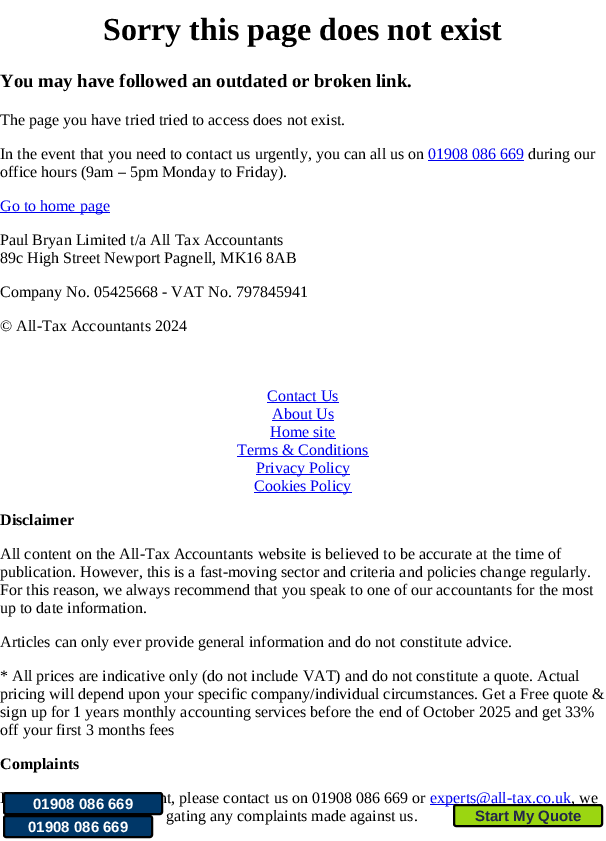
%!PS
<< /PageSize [606 841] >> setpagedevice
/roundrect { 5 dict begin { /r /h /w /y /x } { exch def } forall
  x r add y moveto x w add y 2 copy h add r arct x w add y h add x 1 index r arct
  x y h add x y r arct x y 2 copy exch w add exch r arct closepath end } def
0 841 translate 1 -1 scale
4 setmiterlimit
1 setgray
0 0 606 841 rectfill
/LiberationSerif-Bold [32 0 0 -32 0 0] selectfont
0 setgray
103 40 moveto (Sorry this page does not exist) show
/LiberationSerif-Bold [18.75 0 0 -18.75 0 0] selectfont
0 87 moveto (You may have followed an outdated or broken link.) show
/LiberationSerif-Regular [16 0 0 -16 0 0] selectfont
0 125 moveto (The page you have tried tried to access does not exist.) show
0 159 moveto (In the event that you need to contact us urgently, you can all us on) show
0 0 0.933 setrgbcolor
428 159 moveto (01908 086 669) show
428 160 96 1 rectfill
0 setgray
528 159 moveto (during our) show
0 177 moveto (office hours \(9am – 5pm Monday to Friday\).) show
0 0 0.933 setrgbcolor
0 212 110 1 rectfill
0 211 moveto (Go to home page) show
0 setgray
0 245 moveto (Paul Bryan Limited t/a All Tax Accountants) show
0 263 moveto (89c High Street Newport Pagnell, MK16 8AB) show
0 297 moveto (Company No. 05425668 - VAT No. 797845941) show
0 331 moveto (© All-Tax Accountants 2024) show
0 0 0.933 setrgbcolor
267 401 moveto (Contact Us) show
267 402 72 1 rectfill
272 419 moveto (About Us) show
272 420 62 1 rectfill
270 437 moveto (Home site) show
270 438 66 1 rectfill
237 455 moveto (Terms & Conditions) show
237 456 132 1 rectfill
256 474 94 1 rectfill
256 473 moveto (Privacy Policy) show
254 492 98 1 rectfill
254 491 moveto (Cookies Policy) show
/LiberationSerif-Bold [16 0 0 -16 0 0] selectfont
0 setgray
0 525 moveto (Disclaimer) show
/LiberationSerif-Regular [16 0 0 -16 0 0] selectfont
0 559 moveto (All content on the All-Tax Accountants website is believed to be accurate at the time of) show
0 577 moveto (publication. However, this is a fast-moving sector and criteria and policies change regularly.) show
0 595 moveto (For this reason, we always recommend that you speak to one of our accountants for the most) show
0 613 moveto (up to date information.) show
0 647 moveto (Articles can only ever provide general information and do not constitute advice.) show
0 681 moveto (* All prices are indicative only \(do not include VAT\) and do not constitute a quote. Actual) show
0 699 moveto (pricing will depend upon your specific company/individual circumstances. Get a Free quote &) show
0 717 moveto (sign up for 1 years monthly accounting services before the end of October 2025 and get 33%) show
0 735 moveto (off your first 3 months fees) show
/LiberationSerif-Bold [16 0 0 -16 0 0] selectfont
0 769 moveto (Complaints) show
/LiberationSerif-Regular [16 0 0 -16 0 0] selectfont
0 803 moveto (I) show
159 803 moveto (nt, please contact us on 01908 086 669 or) show
0 0 0.933 setrgbcolor
430 804 26 1 rectfill
430 803 moveto (experts@all-tax.co.uk) show
0 setgray
571 803 moveto (, we) show
166 821 moveto (gating any complaints made against us.) show
0 0.216 0.408 setrgbcolor
4 793 158 21 2 roundrect gsave fill grestore
0 setgray
2 setlinewidth
stroke
/LiberationSans-Bold [15 0 0 -15 0 0] selectfont
1 setgray
33 809 moveto (01908 086 669) show
0 0.216 0.408 setrgbcolor
4 816 148 21 2 roundrect gsave fill grestore
0 setgray
stroke
1 setgray
28 832 moveto (01908 086 669) show
0.608 0.839 0.067 setrgbcolor
454 805 148 21 2 roundrect gsave fill grestore
0 setgray
stroke
0.129 0.145 0.29 setrgbcolor
475 821 moveto (Start My Quote) show
showpage
